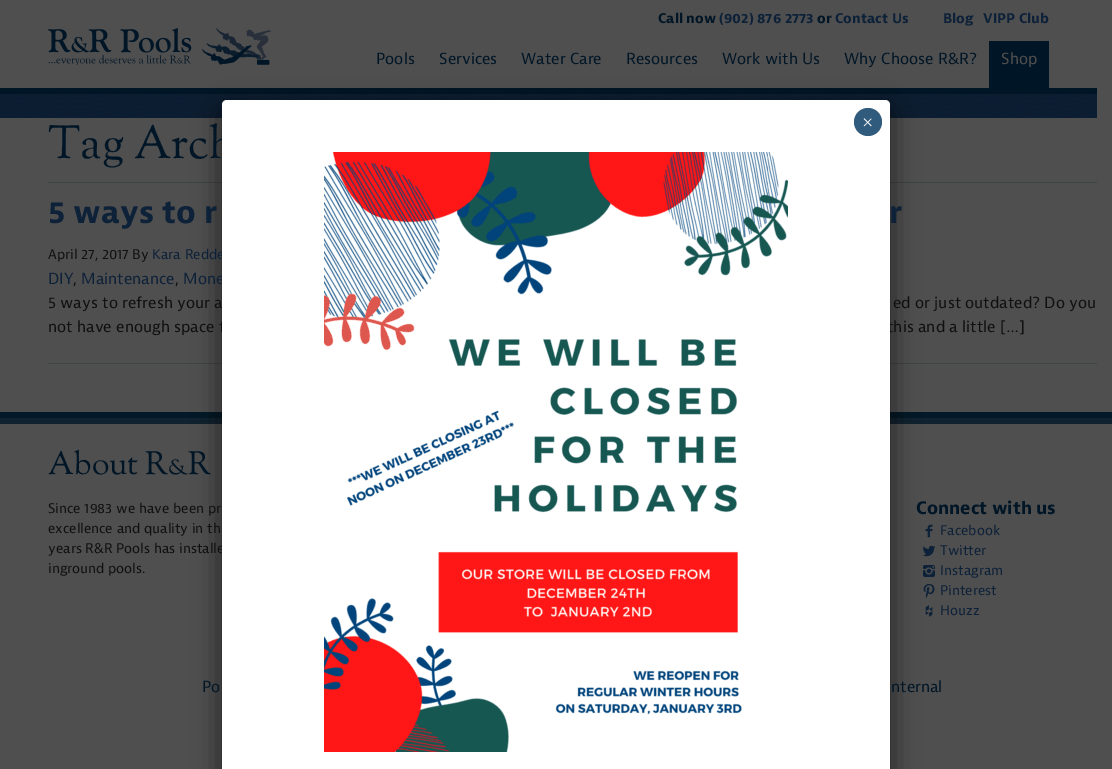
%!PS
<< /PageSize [1112 769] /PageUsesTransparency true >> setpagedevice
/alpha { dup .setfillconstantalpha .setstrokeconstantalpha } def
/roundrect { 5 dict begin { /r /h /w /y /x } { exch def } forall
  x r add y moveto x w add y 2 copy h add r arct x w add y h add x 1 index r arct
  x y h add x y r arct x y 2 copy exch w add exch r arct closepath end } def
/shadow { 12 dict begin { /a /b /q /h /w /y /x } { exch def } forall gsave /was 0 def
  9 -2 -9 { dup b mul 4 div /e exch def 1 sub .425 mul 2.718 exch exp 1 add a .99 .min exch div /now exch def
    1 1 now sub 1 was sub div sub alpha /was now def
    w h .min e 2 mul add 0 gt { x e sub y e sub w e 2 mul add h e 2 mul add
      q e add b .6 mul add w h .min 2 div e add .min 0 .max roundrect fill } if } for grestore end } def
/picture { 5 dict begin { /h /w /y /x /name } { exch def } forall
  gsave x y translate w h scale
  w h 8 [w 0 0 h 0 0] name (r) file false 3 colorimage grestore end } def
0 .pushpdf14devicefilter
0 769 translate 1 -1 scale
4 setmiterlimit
0.31 setgray
0 0 1112 769 rectfill
/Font-Bold [14 0 0 -14 0 0] selectfont
0 0.082 0.149 setrgbcolor
658 23 moveto (Call now) show
0.051 0.129 0.22 setrgbcolor
719 23 moveto (\(902\) 876 2773) show
0 0.082 0.149 setrgbcolor
817 23 moveto (or) show
0.051 0.129 0.22 setrgbcolor
835 23 moveto (Contact Us) show
943 23 moveto (Blog) show
983 23 moveto (VIPP Club) show
(img1.rgb) 48 28 223 37 picture
/Font-Regular [16 0 0 -16 0 0] selectfont
0 0.082 0.149 setrgbcolor
376 64 moveto (Pools) show
439 64 moveto (Services) show
521 64 moveto (Water Care) show
626 64 moveto (Resources) show
722 64 moveto (Work with Us) show
844 64 moveto (Why Choose R&R?) show
989 41 60 47 rectfill
0.31 setgray
1001 64 moveto (Shop) show
0 0.082 0.149 setrgbcolor
0 88 1097 6 rectfill
(img2.rgb) 0 94 1097 24 picture
0.247 0.267 0.278 setrgbcolor
48 182 1049 1 rectfill
48 363 1049 1 rectfill
0.012 0.094 0.157 setrgbcolor
0 412 1112 6 rectfill
0.063 0.129 0.184 setrgbcolor
0 418 1112 6 rectfill
(img4.rgb) 925 524 8 14 picture
(img5.rgb) 922 545 14 12 picture
(img6.rgb) 923 565 12 12 picture
(img7.rgb) 923 584 12 14 picture
(img8.rgb) 925 605 8 12 picture
0.008 setgray
218 106 676 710 9 12.5 0.5 shadow
/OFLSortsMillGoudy-Medium [46 0 0 -46 0 0] selectfont
0 0.082 0.149 setrgbcolor
48 158 moveto (Tag Arch) show
/Font-Regular [14 0 0 -14 0 0] selectfont
0.051 0.129 0.22 setrgbcolor
152 259 moveto (Kara Redde) show
/Font-Regular [16 0 0 -16 0 0] selectfont
183 284 moveto (Mone) show
0.063 setgray
48 308 moveto (5 ways to refresh your a) show
48 332 moveto (not have enough space t) show
887 332 moveto (this and a little […]) show
/Font-Regular [14 0 0 -14 0 0] selectfont
48 553 moveto (years R&R Pools has installe) show
1 setgray
newpath 227 100 moveto 885 100 lineto 888 100 890 102 890 105 curveto 890 769 lineto 222 769 lineto 222 105 lineto 222 102 224 100 227 100 curveto closepath fill
0.192 0.357 0.486 setrgbcolor
newpath 868 122 14 0 360 arc closepath fill
/LiberationSerif-Regular [20 0 0 -20 0 0] selectfont
1 setgray
862 129 moveto (×) show
(img3.rgb) 324 152 464 600 picture
/Font-Bold [32 0 0 -32 0 0] selectfont
0.051 0.129 0.22 setrgbcolor
48 223 moveto (5 ways to r) show
889 223 moveto (r) show
/Font-Regular [14 0 0 -14 0 0] selectfont
0.063 setgray
48 259 moveto (April 27, 2017 By) show
/Font-Regular [16 0 0 -16 0 0] selectfont
0.051 0.129 0.22 setrgbcolor
48 284 moveto (DIY) show
0.063 setgray
73 284 moveto (,) show
0.051 0.129 0.22 setrgbcolor
81 284 moveto (Maintenance) show
0.063 setgray
175 284 moveto (,) show
893 308 moveto (ed or just outdated? Do you) show
/OFLSortsMillGoudy-Medium [32 0 0 -32 0 0] selectfont
0 0.082 0.149 setrgbcolor
48 474 moveto (About R) show
/OFLSortsMillGoudy-Medium [21 0 0 -21 0 0] selectfont
168 474 moveto (&) show
/OFLSortsMillGoudy-Medium [32 0 0 -32 0 0] selectfont
188 474 moveto (R) show
/Font-Regular [14 0 0 -14 0 0] selectfont
0.063 setgray
48 513 moveto (Since 1983 we have been pr) show
48 533 moveto (excellence and quality in th) show
48 573 moveto (inground pools.) show
/Font-Bold [18 0 0 -18 0 0] selectfont
0 0.082 0.149 setrgbcolor
916 514 moveto (Connect with us) show
/Font-Regular [14 0 0 -14 0 0] selectfont
0.051 0.129 0.22 setrgbcolor
940 535 moveto (Facebook) show
940 555 moveto (Twitter) show
940 575 moveto (Instagram) show
940 595 moveto (Pinterest) show
940 615 moveto (Houzz) show
/Font-Regular [16 0 0 -16 0 0] selectfont
0 0.082 0.149 setrgbcolor
202 692 moveto (Po) show
891 692 moveto (nternal) show
.poppdf14devicefilter showpage
